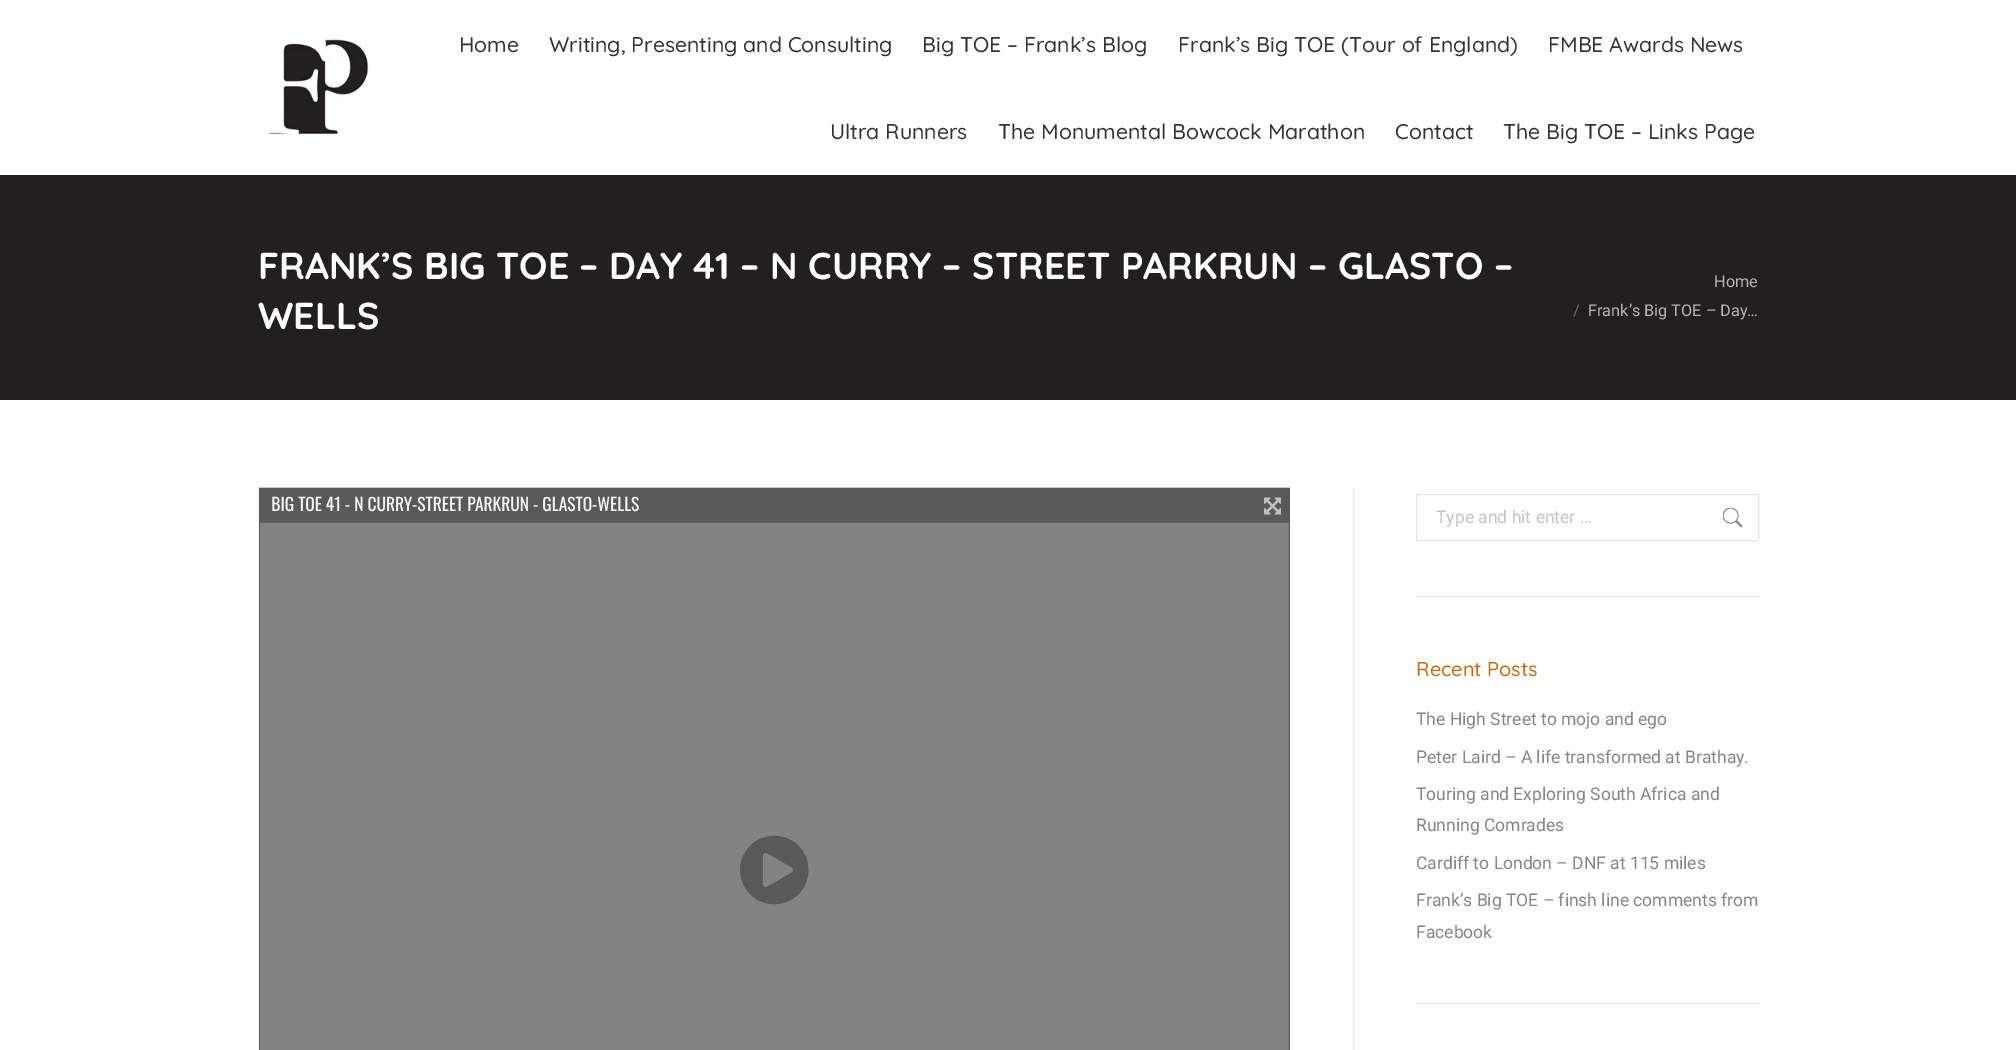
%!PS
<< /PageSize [2016 1050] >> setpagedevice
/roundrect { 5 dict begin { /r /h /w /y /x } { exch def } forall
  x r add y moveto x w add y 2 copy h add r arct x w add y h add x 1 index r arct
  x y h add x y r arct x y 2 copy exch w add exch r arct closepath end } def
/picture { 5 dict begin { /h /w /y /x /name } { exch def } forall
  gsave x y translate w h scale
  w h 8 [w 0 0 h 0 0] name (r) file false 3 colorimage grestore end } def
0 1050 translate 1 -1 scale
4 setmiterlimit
1 setgray
0 0 2016 1050 rectfill
(img1.rgb) 268 39 101 96 picture
/Quicksand-Medium [21.25 0 0 -21.25 0 0] selectfont
0.2 setgray
459 52 moveto (Home) show
549 52 moveto (Writing, Presenting and Consulting) show
922 52 moveto (Big TOE – Frank’s Blog) show
1178 52 moveto (Frank’s Big TOE \(Tour of England\)) show
1548 52 moveto (FMBE Awards News) show
830 139 moveto (Ultra Runners) show
998 139 moveto (The Monumental Bowcock Marathon) show
1395 139 moveto (Contact) show
1503 139 moveto (The Big TOE – Links Page) show
0.137 0.122 0.125 setrgbcolor
0 175 2016 225 rectfill
/Quicksand-Bold [37.5 0 0 -37.5 0 0] selectfont
1 setgray
258 279 moveto (FRANK’S BIG TOE – DAY 41 – N CURRY – STREET PARKRUN – GLASTO –) show
258 329 moveto (WELLS) show
/Roboto-Regular [16.25 0 0 -16.25 0 0] selectfont
0.706 0.71 0.733 setrgbcolor
1714 287 moveto (Home) show
0.424 0.416 0.431 setrgbcolor
1573 316 moveto (/) show
0.706 0.71 0.733 setrgbcolor
1588 316 moveto (Frank’s Big TOE – Day…) show
(img2.rgb) 258 487 1032 563 picture
0.906 setgray
1353 488 1 562 rectfill
0.898 setgray
1416.5 494.5 342 46 0.5 roundrect stroke
/Roboto-Regular [17.5 0 0 -17.5 0 0] selectfont
0.769 0.773 0.788 setrgbcolor
1436 523 moveto (Type and hit enter …) show
(img3.rgb) 1723 508 20 20 picture
0.906 setgray
1416 596 343 1 rectfill
/Quicksand-Medium [20 0 0 -20 0 0] selectfont
0.769 0.42 0.075 setrgbcolor
1416 676 moveto (Recent Posts) show
/Roboto-Regular [17.5 0 0 -17.5 0 0] selectfont
0.522 0.525 0.549 setrgbcolor
1416 725 moveto (The High Street to mojo and ego) show
1416 763 moveto (Peter Laird – A life transformed at Brathay.) show
1416 800 moveto (Touring and Exploring South Africa and) show
1416 831 moveto (Running Comrades) show
1416 869 moveto (Cardiff to London – DNF at 115 miles) show
1416 906 moveto (Frank’s Big TOE – finsh line comments from) show
1416 938 moveto (Facebook) show
0.906 setgray
1416 1003 343 1 rectfill
showpage
